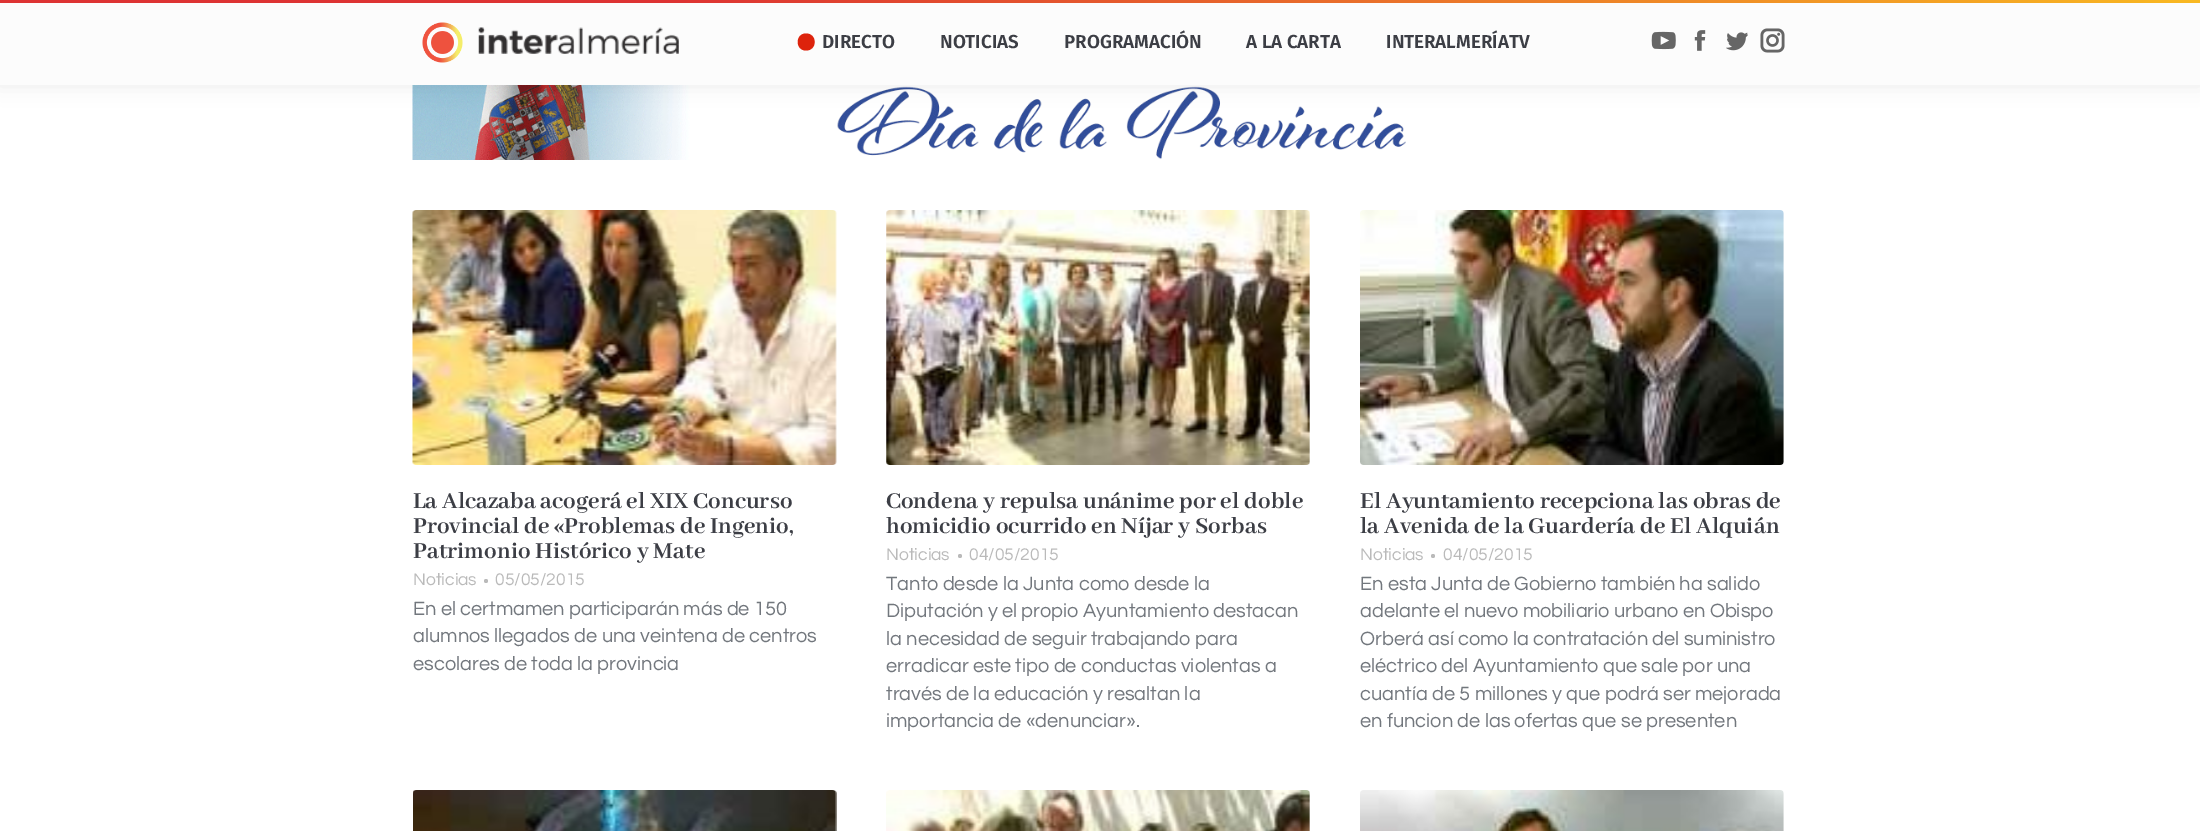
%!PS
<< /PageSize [2200 831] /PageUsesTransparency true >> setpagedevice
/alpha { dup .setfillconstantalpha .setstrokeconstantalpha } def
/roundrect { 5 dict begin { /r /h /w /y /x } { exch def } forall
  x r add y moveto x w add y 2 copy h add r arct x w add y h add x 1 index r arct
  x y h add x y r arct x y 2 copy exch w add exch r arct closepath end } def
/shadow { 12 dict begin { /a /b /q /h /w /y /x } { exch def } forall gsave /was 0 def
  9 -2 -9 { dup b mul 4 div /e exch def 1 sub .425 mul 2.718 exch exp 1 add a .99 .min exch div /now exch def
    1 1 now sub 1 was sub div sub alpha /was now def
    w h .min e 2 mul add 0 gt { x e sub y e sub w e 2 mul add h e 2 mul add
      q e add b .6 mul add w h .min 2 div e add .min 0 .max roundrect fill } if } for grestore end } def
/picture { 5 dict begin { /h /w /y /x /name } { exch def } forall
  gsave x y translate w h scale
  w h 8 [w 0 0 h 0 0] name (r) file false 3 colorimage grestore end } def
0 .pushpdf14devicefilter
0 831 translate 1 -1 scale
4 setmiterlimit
1 setgray
0 0 2200 831 rectfill
(img7.rgb) 412 85 994 75 picture
0 setgray
-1 -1 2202 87 0 9.5 0.07 shadow
gsave newpath 0 0 moveto 2200 0 lineto 2200 3 lineto 0 3 lineto closepath clip newpath
<< /ShadingType 2 /ColorSpace /DeviceRGB /Coords [549 -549 1651 552] /Extend [true true] /Function << /FunctionType 3 /Domain [0 1] /Functions [<< /FunctionType 2 /Domain [0 1] /C0 [0.867 0.2 0.2] /C1 [0.867 0.2 0.2] /N 1 >> << /FunctionType 2 /Domain [0 1] /C0 [0.867 0.2 0.2] /C1 [0.976 0.725 0.133] /N 1 >>] /Bounds [0.3] /Encode [0 1 0 1] >> >> shfill grestore
0.988 setgray
0 3 2200 82 rectfill
(img1.rgb) 422 22 41 41 picture
(img2.rgb) 478 27 201 27 picture
0.867 0.137 0.047 setrgbcolor
newpath 806 33.5 moveto 795 33.5 795 50.5 806 50.5 curveto 817.5 50.5 817.5 33.5 806 33.5 curveto closepath fill
/FiraSans-SemiBold [18.75 0 0 -18.75 0 0] selectfont
0.235 0.243 0.271 setrgbcolor
822 48 moveto (DIRECTO) show
940 48 moveto (NOTICIAS) show
1064 48 moveto (PROGRAMACIÓN) show
1246 48 moveto (A LA CARTA) show
1386 48 moveto (INTERALMERÍATV) show
(img3.rgb) 1651 31 25 19 picture
(img4.rgb) 1694 30 12 21 picture
(img5.rgb) 1726 32 22 19 picture
(img6.rgb) 1760 28 25 25 picture
(img8.rgb) 412 210 425 255 picture
/AbhayaLibre-Bold [25 0 0 -25 0 0] selectfont
413 508 moveto (La Alcazaba acogerá el XIX Concurso) show
413 533 moveto (Provincial de «Problemas de Ingenio,) show
413 558 moveto (Patrimonio Histórico y Mate) show
/Questrial-Regular [17.5 0 0 -17.5 0 0] selectfont
0.729 setgray
413 585 moveto (Noticias) show
newpath 486 581 2 0 360 arc closepath fill
495 585 moveto (05/05/2015) show
/Questrial-Regular [20 0 0 -20 0 0] selectfont
0.447 0.467 0.49 setrgbcolor
413 615 moveto (En el certmamen participarán más de 150) show
413 642 moveto (alumnos llegados de una veintena de centros) show
413 670 moveto (escolares de toda la provincia) show
(img9.rgb) 886 210 424 255 picture
/AbhayaLibre-Bold [25 0 0 -25 0 0] selectfont
0.235 0.243 0.271 setrgbcolor
886 508 moveto (Condena y repulsa unánime por el doble) show
886 533 moveto (homicidio ocurrido en Níjar y Sorbas) show
/Questrial-Regular [17.5 0 0 -17.5 0 0] selectfont
0.729 setgray
886 560 moveto (Noticias) show
newpath 960 556 2 0 360 arc closepath fill
969 560 moveto (04/05/2015) show
/Questrial-Regular [20 0 0 -20 0 0] selectfont
0.447 0.467 0.49 setrgbcolor
886 590 moveto (Tanto desde la Junta como desde la) show
886 617 moveto (Diputación y el propio Ayuntamiento destacan) show
886 645 moveto (la necesidad de seguir trabajando para) show
886 672 moveto (erradicar este tipo de conductas violentas a) show
886 700 moveto (través de la educación y resaltan la) show
886 727 moveto (importancia de «denunciar».) show
(img10.rgb) 1360 210 424 255 picture
/AbhayaLibre-Bold [25 0 0 -25 0 0] selectfont
0.235 0.243 0.271 setrgbcolor
1360 508 moveto (El Ayuntamiento recepciona las obras de) show
1360 533 moveto (la Avenida de la Guardería de El Alquián) show
/Questrial-Regular [17.5 0 0 -17.5 0 0] selectfont
0.729 setgray
1360 560 moveto (Noticias) show
newpath 1433 556 2 0 360 arc closepath fill
1443 560 moveto (04/05/2015) show
/Questrial-Regular [20 0 0 -20 0 0] selectfont
0.447 0.467 0.49 setrgbcolor
1360 590 moveto (En esta Junta de Gobierno también ha salido) show
1360 617 moveto (adelante el nuevo mobiliario urbano en Obispo) show
1360 645 moveto (Orberá así como la contratación del suministro) show
1360 672 moveto (eléctrico del Ayuntamiento que sale por una) show
1360 700 moveto (cuantía de 5 millones y que podrá ser mejorada) show
1360 727 moveto (en funcion de las ofertas que se presenten) show
(img11.rgb) 413 790 424 41 picture
(img12.rgb) 886 790 424 41 picture
(img13.rgb) 1360 790 424 41 picture
.poppdf14devicefilter showpage
